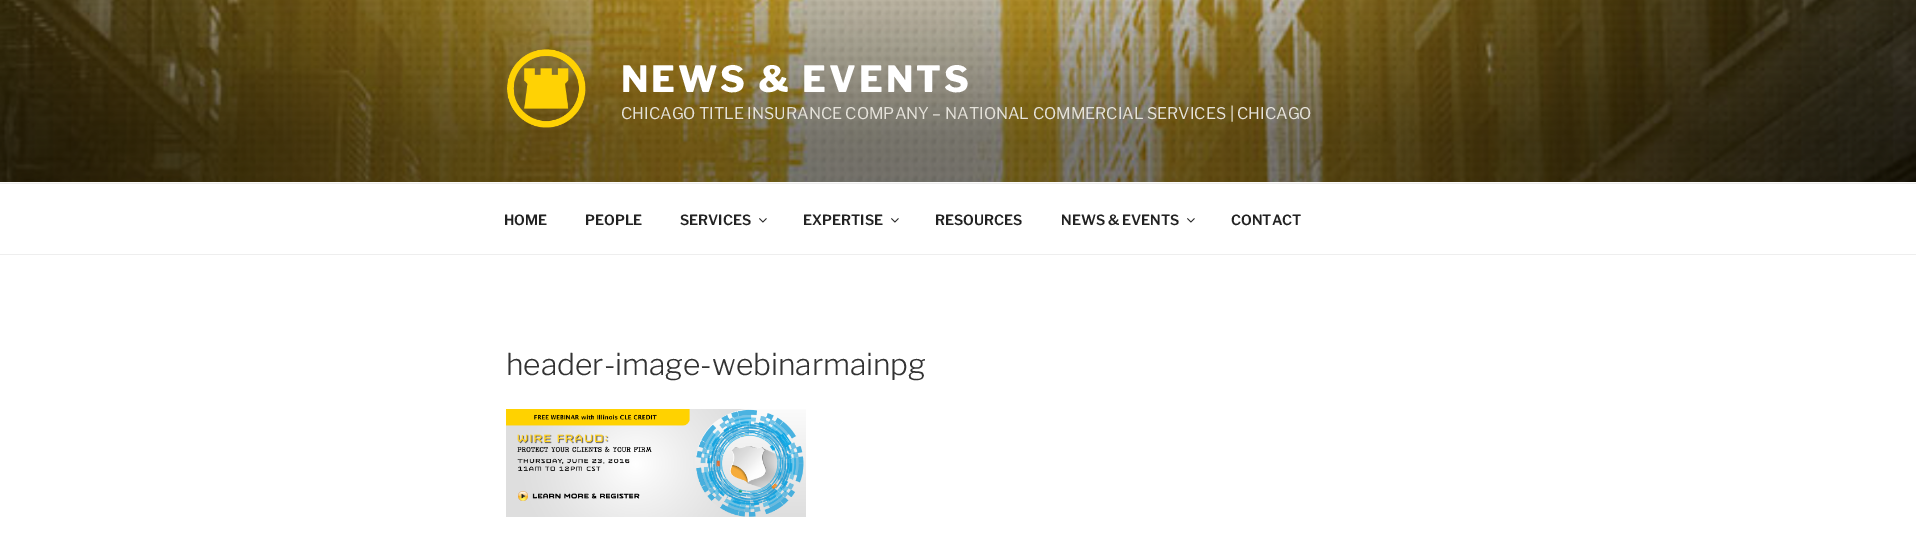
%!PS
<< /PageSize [1916 544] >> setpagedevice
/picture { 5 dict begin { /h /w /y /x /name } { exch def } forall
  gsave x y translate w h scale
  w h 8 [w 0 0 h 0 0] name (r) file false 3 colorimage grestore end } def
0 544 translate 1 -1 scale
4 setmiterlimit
1 setgray
0 0 1916 544 rectfill
0.98 setgray
0 182 1916 1 rectfill
(img1.rgb) 0 0 1916 182 picture
(img2.rgb) 507 49 79 79 picture
/LibreFranklin-ExtraBold [36 0 0 -36 0 0] selectfont
1 setgray
621 92 moveto 2.9 0 (NEWS & EVENTS) ashow
/LibreFranklin-Regular [16 0 0 -16 0 0] selectfont
0.898 0.886 0.855 setrgbcolor
621 119 moveto (CHICAGO TITLE INSURANCE COMPANY – NATIONAL COMMERCIAL SERVICES) show
0.886 0.867 0.816 setrgbcolor
1230 119 moveto (|) show
0.898 0.886 0.855 setrgbcolor
1237 119 moveto (CHICAGO) show
0.933 setgray
0 183 1916 1 rectfill
0 254 1916 1 rectfill
/LibreFranklin-SemiBold [14 0 0 -14 0 0] selectfont
0.133 setgray
504 225 moveto (HOME) show
585 225 moveto (PEOPLE) show
680 225 moveto (SERVICES) show
(img3.rgb) 759 218 8 5 picture
803 225 moveto (EXPERTISE) show
(img3.rgb) 891 218 8 5 picture
935 225 moveto (RESOURCES) show
1061 225 moveto (NEWS & EVENTS) show
(img3.rgb) 1187 218 8 5 picture
1231 225 moveto (CONTACT) show
/LibreFranklin-Light [30 0 0 -30 0 0] selectfont
0.2 setgray
506 375 moveto (header-image-webinarmainpg) show
(img4.rgb) 506 409 300 108 picture
showpage
